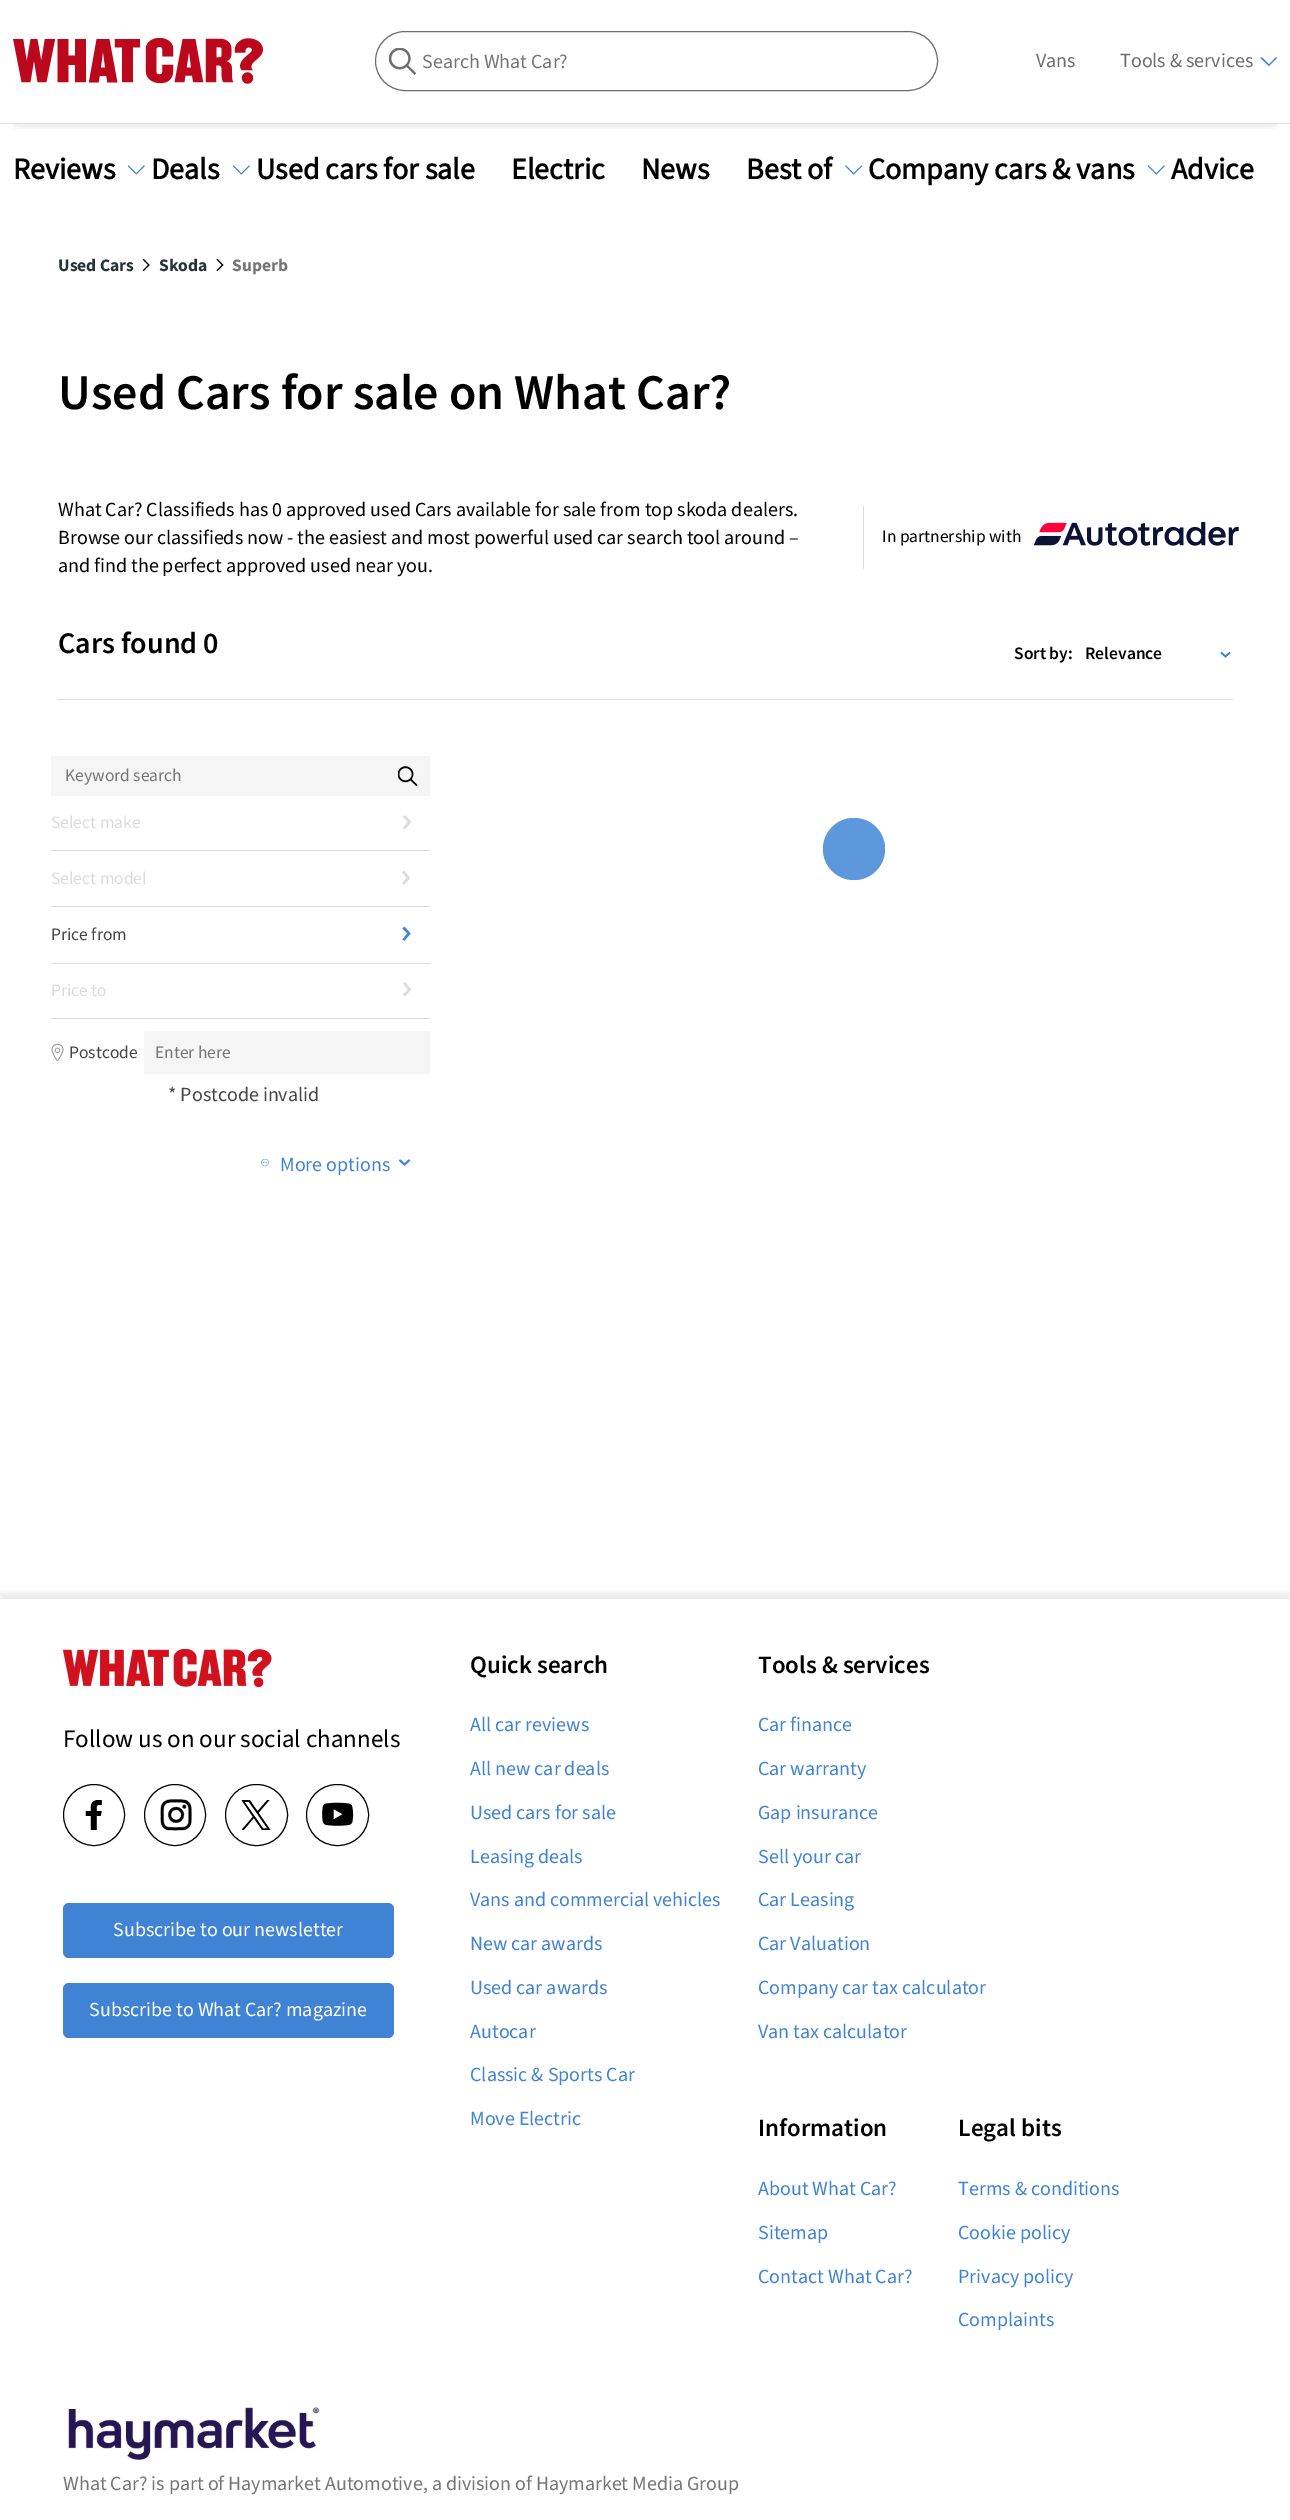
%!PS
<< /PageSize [1290 2520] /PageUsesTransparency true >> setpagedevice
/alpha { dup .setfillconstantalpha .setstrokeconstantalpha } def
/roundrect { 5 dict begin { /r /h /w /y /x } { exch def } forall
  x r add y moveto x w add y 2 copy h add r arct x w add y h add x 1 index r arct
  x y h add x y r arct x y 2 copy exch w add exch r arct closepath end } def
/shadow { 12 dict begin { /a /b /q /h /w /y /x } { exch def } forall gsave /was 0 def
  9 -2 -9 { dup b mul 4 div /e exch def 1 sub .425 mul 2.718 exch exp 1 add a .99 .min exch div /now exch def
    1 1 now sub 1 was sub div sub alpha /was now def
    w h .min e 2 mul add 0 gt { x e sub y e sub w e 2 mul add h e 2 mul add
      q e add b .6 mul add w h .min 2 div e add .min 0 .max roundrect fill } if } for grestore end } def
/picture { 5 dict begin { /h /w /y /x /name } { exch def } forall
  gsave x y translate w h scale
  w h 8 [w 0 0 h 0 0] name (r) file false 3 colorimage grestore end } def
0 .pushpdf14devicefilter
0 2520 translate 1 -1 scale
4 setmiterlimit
1 setgray
0 0 1290 2520 rectfill
gsave
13 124 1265 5 rectclip
0.125 setgray
18 25 1255 89 0 7.5 1 shadow
grestore
0.878 setgray
0 123 1290 1 rectfill
(img1.rgb) 13 38 250 46 picture
0.427 setgray
375.5 31.5 562 59 29.5 roundrect stroke
(img2.rgb) 389 48 27 27 picture
/SourceSans3-Regular [20 0 0 -20 0 0] selectfont
0.459 setgray
422 68 moveto (Search What Car?) show
0.427 setgray
1036 67 moveto (Vans) show
1120 67 moveto (Tools & services) show
0.247 0.518 0.835 setrgbcolor
newpath 1260 57.5 moveto 1277.5 57.5 lineto 1269 66 lineto closepath fill
1 setgray
newpath 1260 55 moveto 1277.5 55 lineto 1269 64 lineto closepath fill
/SourceSans3-Bold [30 0 0 -30 0 0] selectfont
0 setgray
13 179 moveto (Reviews) show
(img3.rgb) 127 165 18 10 picture
151 179 moveto (Deals) show
(img3.rgb) 232 165 18 10 picture
256 179 moveto (Used cars for sale) show
511 179 moveto (Electric) show
641 179 moveto (News) show
746 179 moveto (Best of) show
(img4.rgb) 845 165 18 10 picture
868 179 moveto (Company cars & vans) show
(img3.rgb) 1147 165 18 10 picture
1171 179 moveto (Advice) show
/SourceSansPro-Bold [17.5 0 0 -17.5 0 0] selectfont
0.149 0.196 0.22 setrgbcolor
58 271 moveto (Used Cars) show
(img5.rgb) 142 259 8 12 picture
159 271 moveto (Skoda) show
(img6.rgb) 216 259 8 12 picture
0.459 setgray
232 271 moveto (Superb) show
/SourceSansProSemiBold-SemiBold [50 0 0 -50 0 0] selectfont
0 setgray
58 409 moveto (Used Cars for sale on What Car?) show
/SourceSansPro-Regular [20 0 0 -20 0 0] selectfont
58 516 moveto (What Car? Classifieds has 0 approved used Cars available for sale from top skoda dealers.) show
58 544 moveto (Browse our classifieds now - the easiest and most powerful used car search tool around –) show
58 572 moveto (and find the perfect approved used near you.) show
0.859 setgray
863 506 1 63 rectfill
/SourceSansPro-Regular [17.5 0 0 -17.5 0 0] selectfont
0 setgray
882 542 moveto (In partnership with) show
(img7.rgb) 1034 522 205 24 picture
/SourceSansProSemiBold-SemiBold [30 0 0 -30 0 0] selectfont
58 653 moveto (Cars found 0) show
/SourceSansProSemiBold-SemiBold [17.5 0 0 -17.5 0 0] selectfont
1014 659 moveto (Sort by:) show
1085 659 moveto (Relevance) show
0.247 0.518 0.835 setrgbcolor
1.7 setlinewidth
newpath 1221 652.5 moveto 1225.5 656.5 lineto 1230 652.5 lineto stroke
0.961 setgray
51 756 379 40 rectfill
/SourceSansPro-Regular [17.5 0 0 -17.5 0 0] selectfont
0.459 setgray
65 781 moveto (Keyword search) show
(img8.rgb) 398 766 20 20 picture
0.859 setgray
51 828 moveto (Select make) show
2.4 setlinewidth
newpath 404 828.5 moveto 409.5 822 lineto 404 816 lineto stroke
51 850 379 1 rectfill
51 884 moveto (Select model) show
newpath 403 884 moveto 408.5 878 lineto 403 871.5 lineto stroke
51 906 379 1 rectfill
0.271 setgray
51 940 moveto (Price from) show
0.247 0.518 0.835 setrgbcolor
newpath 403.5 940 moveto 409 933.5 lineto 403.5 927.5 lineto stroke
0.859 setgray
51 963 379 1 rectfill
51 996 moveto (Price to) show
newpath 404 995.5 moveto 409.5 989.5 lineto 404 983 lineto stroke
51 1018 379 1 rectfill
(img9.rgb) 51 1044 13 17 picture
0.271 setgray
69 1058 moveto (Postcode) show
0.961 setgray
144 1031 286 43 2.5 roundrect fill
0.459 setgray
155 1058 moveto (Enter here) show
/SourceSansPro-Regular [20 0 0 -20 0 0] selectfont
0.271 setgray
168 1101 moveto (* Postcode invalid) show
(img10.rgb) 261 1159 8 8 picture
0.251 0.514 0.835 setrgbcolor
280 1171 moveto (More options) show
0.247 0.518 0.835 setrgbcolor
1.9 setlinewidth
newpath 399.5 1160 moveto 404.5 1164.5 lineto 409.5 1160 lineto stroke
0.859 setgray
58 699 1175 1 rectfill
0.549 0.71 0.902 setrgbcolor
newpath 854 849 31 0 360 arc closepath fill
0.6 alpha
0.247 0.518 0.835 setrgbcolor
newpath 854 849 31 0 360 arc closepath fill
gsave
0 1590 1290 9 rectclip
1 alpha
0.125 setgray
0 1593 1290 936 0 3 0.1 shadow
grestore
1 alpha
(img11.rgb) 63 1649 209 39 picture
/SourceSans3-Regular [25 0 0 -25 0 0] selectfont
0 setgray
63 1747 moveto (Follow us on our social channels) show
1 setlinewidth
newpath 94 1815 30.5 0 360 arc closepath stroke
(img12.rgb) 85 1800 17 30 picture
newpath 175 1815 30.5 0 360 arc closepath stroke
(img13.rgb) 160 1799 32 32 picture
225.5 1784.5 62 61 30.5 roundrect stroke
(img14.rgb) 241 1800 30 30 picture
306.5 1784.5 62 61 30.5 roundrect stroke
(img15.rgb) 322 1802 32 24 picture
0.251 0.514 0.835 setrgbcolor
63 1903 331 55 6 roundrect fill
/SourceSans3-Regular [20 0 0 -20 0 0] selectfont
1 setgray
113 1936 moveto (Subscribe to our newsletter) show
0.251 0.514 0.835 setrgbcolor
63 1983 331 55 6 roundrect fill
1 setgray
89 2016 moveto (Subscribe to What Car? magazine) show
/SourceSansProSemiBold-SemiBold [25 0 0 -25 0 0] selectfont
0 setgray
470 1673 moveto (Quick search) show
/SourceSans3-Regular [20 0 0 -20 0 0] selectfont
0.251 0.514 0.835 setrgbcolor
470 1731 moveto (All car reviews) show
470 1775 moveto (All new car deals) show
470 1819 moveto (Used cars for sale) show
470 1863 moveto (Leasing deals) show
470 1906 moveto (Vans and commercial vehicles) show
470 1950 moveto (New car awards) show
470 1994 moveto (Used car awards) show
470 2038 moveto (Autocar) show
470 2081 moveto (Classic & Sports Car) show
470 2125 moveto (Move Electric) show
/SourceSansProSemiBold-SemiBold [25 0 0 -25 0 0] selectfont
0 setgray
758 1673 moveto (Tools & services) show
/SourceSans3-Regular [20 0 0 -20 0 0] selectfont
0.251 0.514 0.835 setrgbcolor
758 1731 moveto (Car finance) show
758 1775 moveto (Car warranty) show
758 1819 moveto (Gap insurance) show
758 1863 moveto (Sell your car) show
758 1906 moveto (Car Leasing) show
758 1950 moveto (Car Valuation) show
758 1994 moveto (Company car tax calculator) show
758 2038 moveto (Van tax calculator) show
/SourceSansProSemiBold-SemiBold [25 0 0 -25 0 0] selectfont
0 setgray
758 2136 moveto (Information) show
/SourceSans3-Regular [20 0 0 -20 0 0] selectfont
0.251 0.514 0.835 setrgbcolor
758 2195 moveto (About What Car?) show
758 2239 moveto (Sitemap) show
758 2283 moveto (Contact What Car?) show
/SourceSansProSemiBold-SemiBold [25 0 0 -25 0 0] selectfont
0 setgray
958 2136 moveto (Legal bits) show
/SourceSans3-Regular [20 0 0 -20 0 0] selectfont
0.251 0.514 0.835 setrgbcolor
958 2195 moveto (Terms & conditions) show
958 2239 moveto (Cookie policy) show
958 2283 moveto (Privacy policy) show
958 2326 moveto (Complaints) show
(img16.rgb) 68 2407 251 53 picture
0.459 setgray
63 2490 moveto (What Car? is part of Haymarket Automotive, a division of Haymarket Media Group) show
.poppdf14devicefilter showpage
